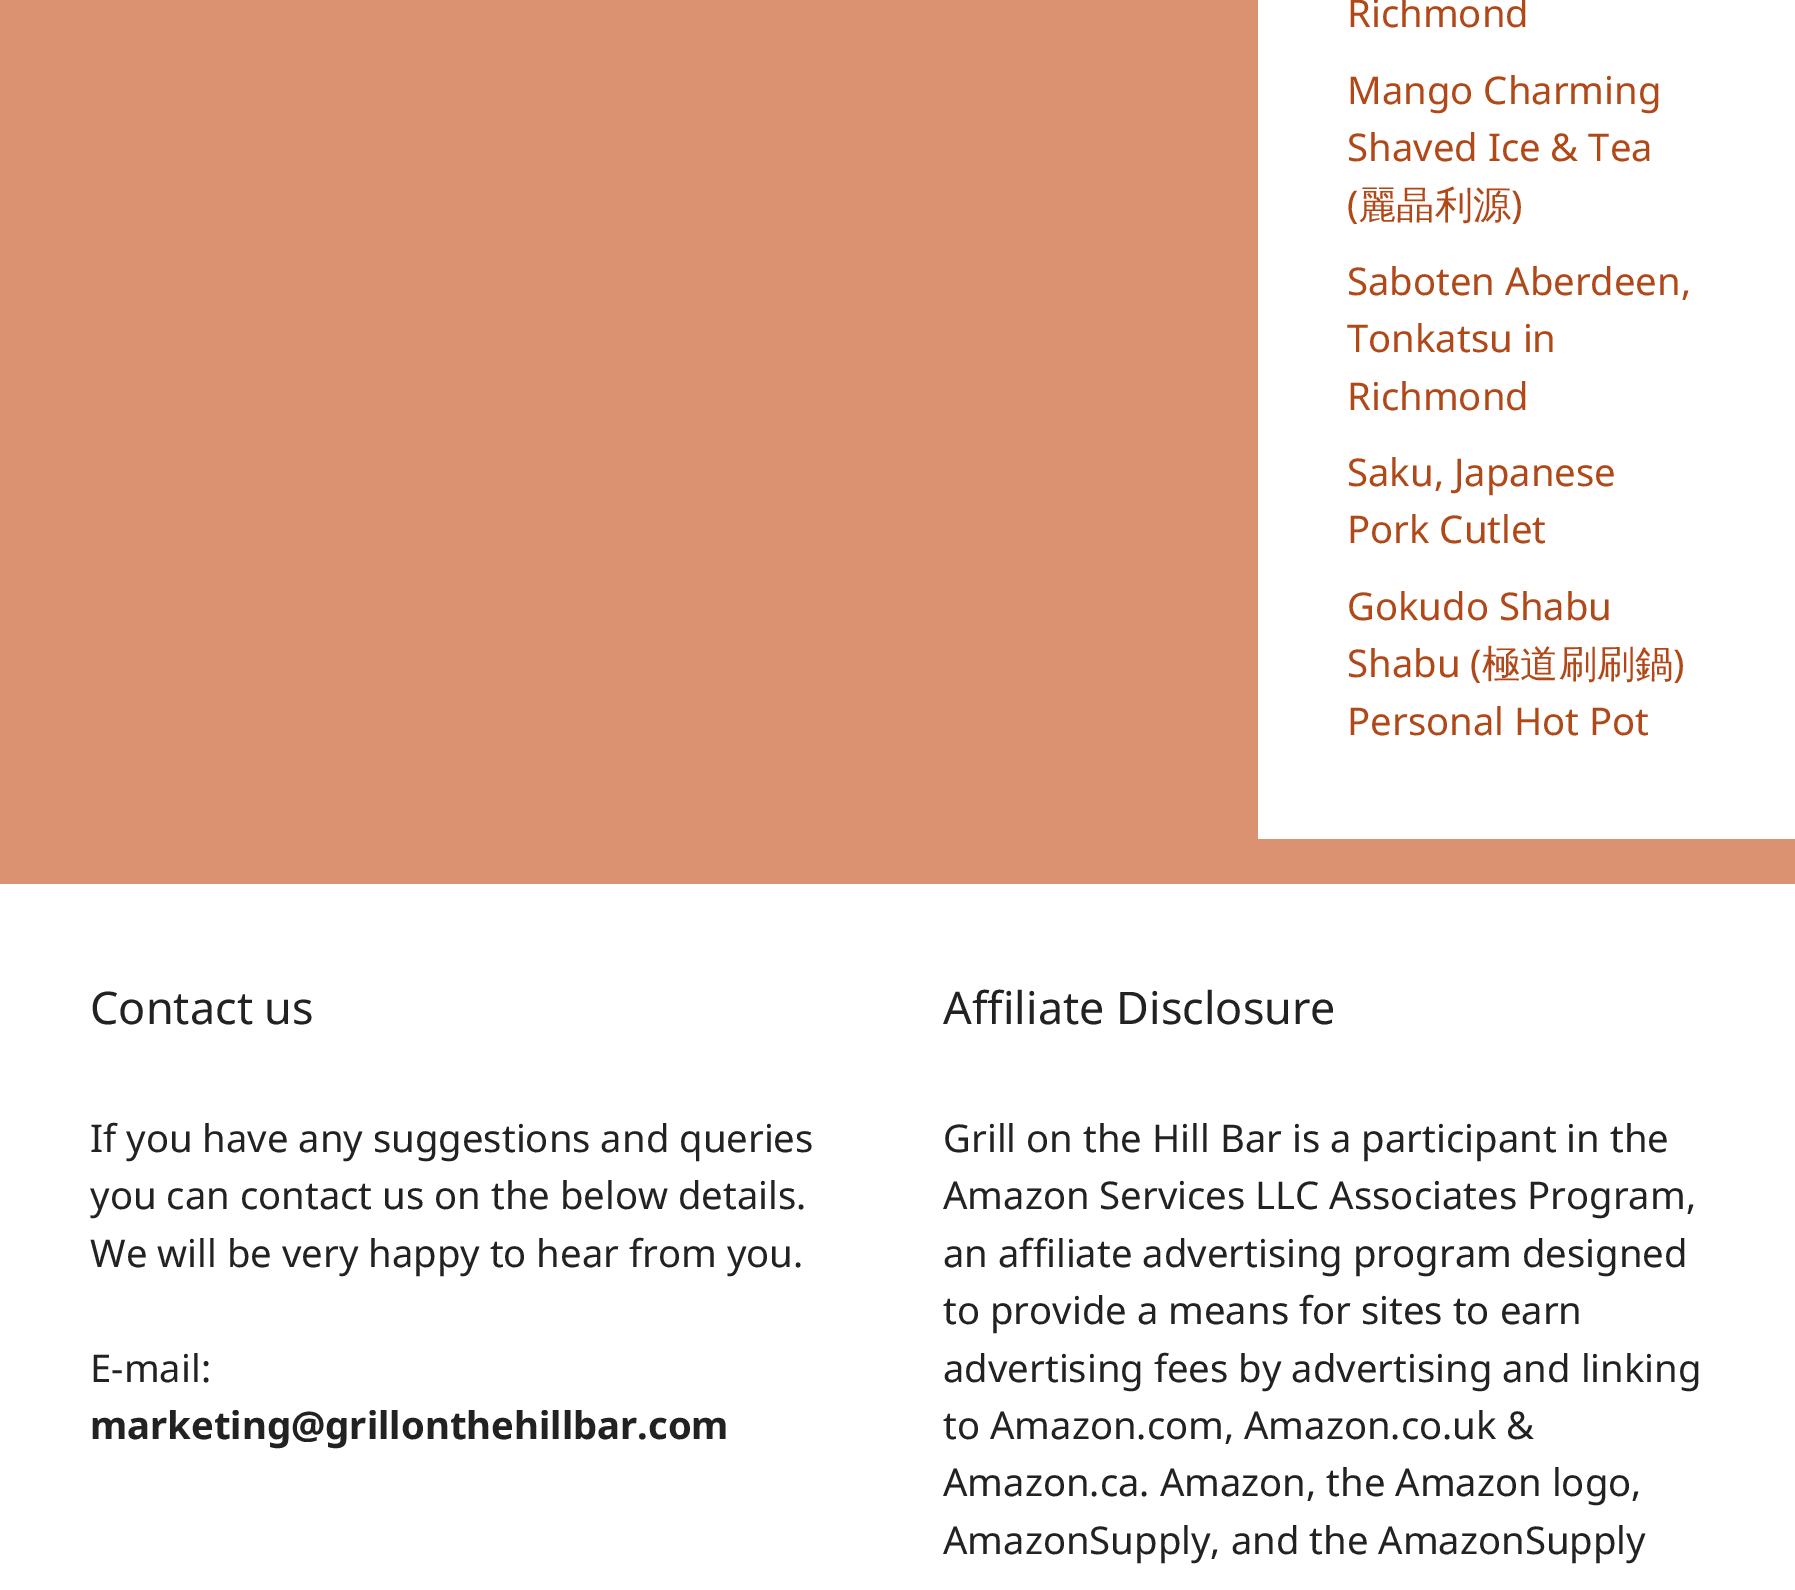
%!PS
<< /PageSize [1795 1590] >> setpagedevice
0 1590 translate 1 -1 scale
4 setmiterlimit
0.855 0.573 0.443 setrgbcolor
0 0 1795 1590 rectfill
1 setgray
1258 0 537 839 rectfill
/NotoSans-Regular [38.25 0 0 -38.25 0 0] selectfont
0.694 0.282 0.094 setrgbcolor
1347 27 moveto (Richmond) show
1347 104 moveto (Mango Charming) show
1347 161 moveto (Shaved Ice & Tea) show
1347 218 moveto (\() show
/WenQuanYiZenHei-Medium [38.25 0 0 -38.25 0 0] selectfont
1358 218 moveto (麗晶利源) show
/NotoSans-Regular [38.25 0 0 -38.25 0 0] selectfont
1511 218 moveto (\)) show
1347 295 moveto (Saboten Aberdeen,) show
1347 352 moveto (Tonkatsu in) show
1347 410 moveto (Richmond) show
1347 486 moveto (Saku, Japanese) show
1347 543 moveto (Pork Cutlet) show
1347 620 moveto (Gokudo Shabu) show
1347 677 moveto (Shabu \() show
/WenQuanYiZenHei-Medium [38.25 0 0 -38.25 0 0] selectfont
1482 677 moveto (極道刷刷鍋) show
/NotoSans-Regular [38.25 0 0 -38.25 0 0] selectfont
1673 677 moveto (\)) show
1347 735 moveto (Personal Hot Pot) show
1 setgray
0 884 1795 706 rectfill
/NotoSans-Regular [45 0 0 -45 0 0] selectfont
0.133 setgray
90 1024 moveto (Contact us) show
/NotoSans-Regular [38.25 0 0 -38.25 0 0] selectfont
90 1152 moveto (If you have any suggestions and queries) show
90 1209 moveto (you can contact us on the below details.) show
90 1267 moveto (We will be very happy to hear from you.) show
90 1382 moveto (E-mail:) show
/NotoSans-Bold [38.25 0 0 -38.25 0 0] selectfont
90 1439 moveto (marketing@grillonthehillbar.com) show
/NotoSans-Regular [45 0 0 -45 0 0] selectfont
943 1024 moveto (Affiliate Disclosure) show
/NotoSans-Regular [38.25 0 0 -38.25 0 0] selectfont
943 1152 moveto (Grill on the Hill Bar is a participant in the) show
943 1209 moveto (Amazon Services LLC Associates Program,) show
943 1267 moveto (an affiliate advertising program designed) show
943 1324 moveto (to provide a means for sites to earn) show
943 1382 moveto (advertising fees by advertising and linking) show
943 1439 moveto (to Amazon.com, Amazon.co.uk &) show
943 1496 moveto (Amazon.ca. Amazon, the Amazon logo,) show
943 1554 moveto (AmazonSupply, and the AmazonSupply) show
showpage
